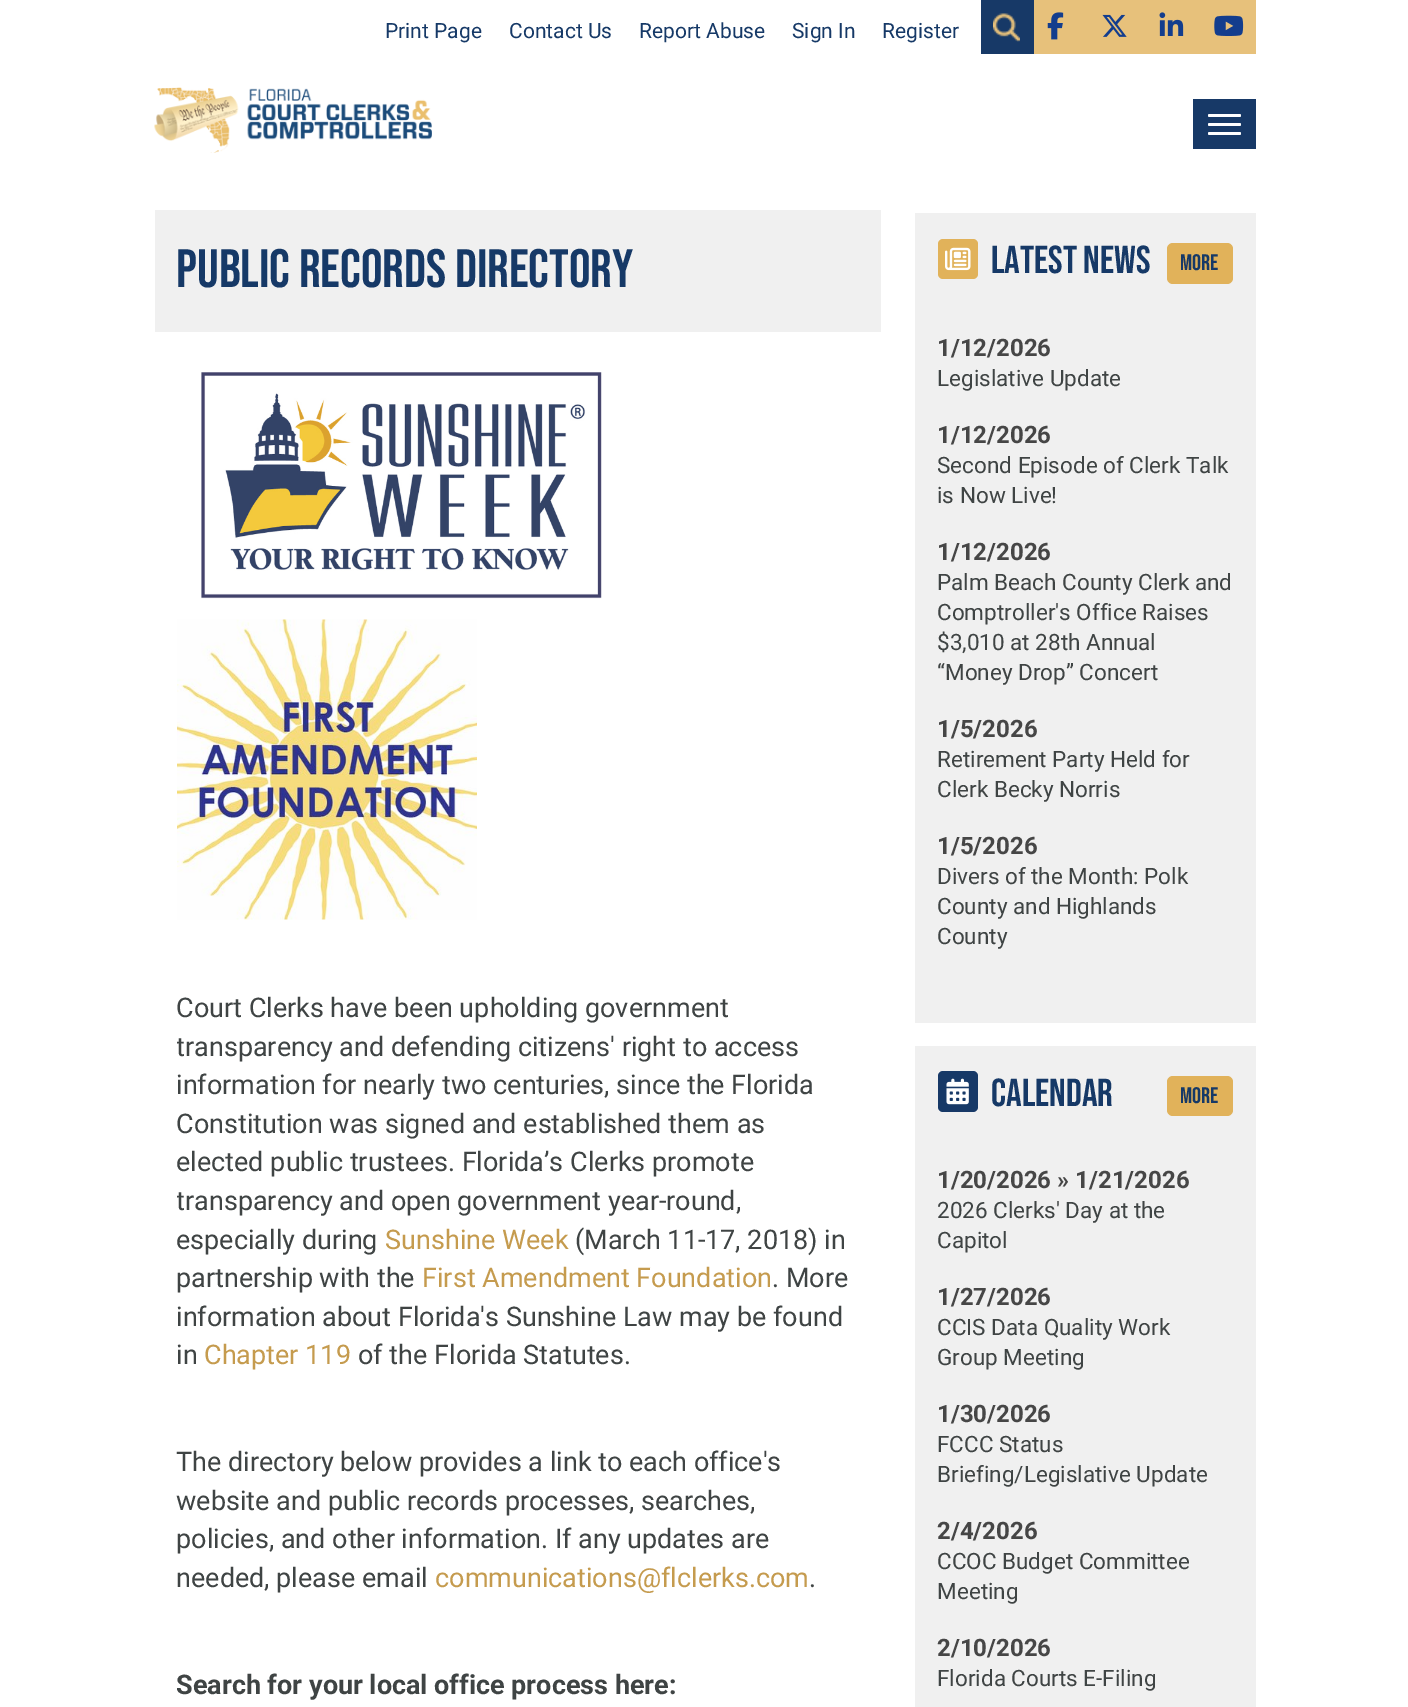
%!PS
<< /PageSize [1408 1707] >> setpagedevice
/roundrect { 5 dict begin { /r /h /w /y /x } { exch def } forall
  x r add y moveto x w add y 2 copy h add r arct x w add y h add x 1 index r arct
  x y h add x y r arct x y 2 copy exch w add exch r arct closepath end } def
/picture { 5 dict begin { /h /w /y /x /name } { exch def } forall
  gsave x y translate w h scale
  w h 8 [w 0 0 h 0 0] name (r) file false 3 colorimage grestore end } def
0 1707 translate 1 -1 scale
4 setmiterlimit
1 setgray
0 0 1408 1707 rectfill
0.906 0.757 0.482 setrgbcolor
1034 0 222 54 rectfill
(img1.rgb) 1047 12 17 28 picture
(img2.rgb) 1102 14 25 23 picture
(img3.rgb) 1159 12 25 24 picture
(img4.rgb) 1214 15 30 21 picture
(img5.rgb) 154 87 278 66 picture
/Roboto-Regular [21 0 0 -21 0 0] selectfont
0.086 0.224 0.404 setrgbcolor
385 38 moveto (Print Page) show
509 38 moveto (Contact Us) show
639 38 moveto (Report Abuse) show
792 38 moveto (Sign In) show
882 38 moveto (Register) show
0.09 0.224 0.404 setrgbcolor
981 0 53 54 rectfill
(img6.rgb) 993 13 27 29 picture
1193 99 63 50 rectfill
1 setgray
1208 114 33 3 1.5 roundrect fill
1208 123 33 3 1.5 roundrect fill
1208 132 33 3 1.5 roundrect fill
0.941 setgray
155 210 726 122 rectfill
/BebasNeue-Regular [54 0 0 -54 0 0] selectfont
0.086 0.224 0.404 setrgbcolor
176 287 moveto (Public Records Directory) show
(img7.rgb) 201 372 401 227 picture
(img8.rgb) 177 619 300 301 picture
/Roboto-Regular [27 0 0 -27 0 0] selectfont
0.247 0.267 0.267 setrgbcolor
176 1017 moveto (Court Clerks have been upholding government) show
gsave
177 354 681 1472 rectclip
176 1056 moveto (transparency and defending citizens' right to access) show
grestore
176 1094 moveto (information for nearly two centuries, since the Florida) show
176 1133 moveto (Constitution was signed and established them as) show
176 1171 moveto (elected public trustees. Florida’s Clerks promote) show
gsave
177 354 681 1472 rectclip
176 1210 moveto (transparency and open government year-round,) show
grestore
176 1249 moveto (especially during) show
0.773 0.608 0.306 setrgbcolor
385 1249 moveto (Sunshine Week) show
0.247 0.267 0.267 setrgbcolor
575 1249 moveto (\(March 11-17, 2018\) in) show
176 1287 moveto (partnership with the) show
0.773 0.608 0.306 setrgbcolor
422 1287 moveto (First Amendment Foundation) show
0.247 0.267 0.267 setrgbcolor
772 1287 moveto (. More) show
176 1326 moveto (information about Florida's Sunshine Law may be found) show
176 1364 moveto (in) show
0.773 0.608 0.306 setrgbcolor
204 1364 moveto (Chapter 119) show
0.247 0.267 0.267 setrgbcolor
358 1364 moveto (of the Florida Statutes.) show
176 1471 moveto (The directory below provides a link to each office's) show
176 1510 moveto (website and public records processes, searches,) show
176 1548 moveto (policies, and other information. If any updates are) show
176 1587 moveto (needed, please email) show
0.773 0.608 0.306 setrgbcolor
435 1587 moveto (communications@flclerks.com) show
0.247 0.267 0.267 setrgbcolor
809 1587 moveto (.) show
/Roboto-Bold [27 0 0 -27 0 0] selectfont
176 1694 moveto (Search for your local office process here:) show
0.941 setgray
915 213 341 810 rectfill
0.882 0.698 0.353 setrgbcolor
938 239 40 40 5 roundrect fill
(img9.rgb) 945 247 26 24 picture
/BebasNeue-Regular [39 0 0 -39 0 0] selectfont
0.086 0.224 0.404 setrgbcolor
991 273 moveto (LATEST NEWS) show
0.882 0.698 0.353 setrgbcolor
1167 243 66 41 6 roundrect fill
/BebasNeue-Regular [22.5 0 0 -22.5 0 0] selectfont
0.086 0.224 0.404 setrgbcolor
1180 270 moveto (MORE) show
/Roboto-Bold [24 0 0 -24 0 0] selectfont
0.275 setgray
937 356 moveto (1/12/2026) show
/Roboto-Regular [22.5 0 0 -22.5 0 0] selectfont
0.247 0.267 0.267 setrgbcolor
937 386 moveto (Legislative Update) show
/Roboto-Bold [24 0 0 -24 0 0] selectfont
0.275 setgray
937 443 moveto (1/12/2026) show
/Roboto-Regular [22.5 0 0 -22.5 0 0] selectfont
0.247 0.267 0.267 setrgbcolor
937 473 moveto (Second Episode of Clerk Talk) show
937 503 moveto (is Now Live!) show
/Roboto-Bold [24 0 0 -24 0 0] selectfont
0.275 setgray
937 560 moveto (1/12/2026) show
/Roboto-Regular [22.5 0 0 -22.5 0 0] selectfont
0.247 0.267 0.267 setrgbcolor
937 590 moveto (Palm Beach County Clerk and) show
937 620 moveto (Comptroller's Office Raises) show
937 650 moveto ($3,010 at 28th Annual) show
937 680 moveto (“Money Drop” Concert) show
/Roboto-Bold [24 0 0 -24 0 0] selectfont
0.275 setgray
937 737 moveto (1/5/2026) show
/Roboto-Regular [22.5 0 0 -22.5 0 0] selectfont
0.247 0.267 0.267 setrgbcolor
937 767 moveto (Retirement Party Held for) show
937 797 moveto (Clerk Becky Norris) show
/Roboto-Bold [24 0 0 -24 0 0] selectfont
0.275 setgray
937 854 moveto (1/5/2026) show
/Roboto-Regular [22.5 0 0 -22.5 0 0] selectfont
0.247 0.267 0.267 setrgbcolor
937 884 moveto (Divers of the Month: Polk) show
937 914 moveto (County and Highlands) show
937 944 moveto (County) show
0.941 setgray
915 1046 341 661 rectfill
0.09 0.224 0.404 setrgbcolor
938 1071 40 41 5 roundrect fill
(img10.rgb) 946 1078 23 27 picture
/BebasNeue-Regular [39 0 0 -39 0 0] selectfont
0.086 0.224 0.404 setrgbcolor
991 1106 moveto (CALENDAR) show
0.882 0.698 0.353 setrgbcolor
1167 1076 66 40 6 roundrect fill
/BebasNeue-Regular [22.5 0 0 -22.5 0 0] selectfont
0.086 0.224 0.404 setrgbcolor
1180 1103 moveto (MORE) show
/Roboto-Bold [24 0 0 -24 0 0] selectfont
0.275 setgray
937 1188 moveto (1/20/2026 » 1/21/2026) show
/Roboto-Regular [22.5 0 0 -22.5 0 0] selectfont
0.247 0.267 0.267 setrgbcolor
937 1218 moveto (2026 Clerks' Day at the) show
937 1248 moveto (Capitol) show
/Roboto-Bold [24 0 0 -24 0 0] selectfont
0.275 setgray
937 1305 moveto (1/27/2026) show
/Roboto-Regular [22.5 0 0 -22.5 0 0] selectfont
0.247 0.267 0.267 setrgbcolor
937 1335 moveto (CCIS Data Quality Work) show
937 1365 moveto (Group Meeting) show
/Roboto-Bold [24 0 0 -24 0 0] selectfont
0.275 setgray
937 1422 moveto (1/30/2026) show
/Roboto-Regular [22.5 0 0 -22.5 0 0] selectfont
0.247 0.267 0.267 setrgbcolor
937 1452 moveto (FCCC Status) show
937 1482 moveto (Briefing/Legislative Update) show
/Roboto-Bold [24 0 0 -24 0 0] selectfont
0.275 setgray
937 1539 moveto (2/4/2026) show
/Roboto-Regular [22.5 0 0 -22.5 0 0] selectfont
0.247 0.267 0.267 setrgbcolor
937 1569 moveto (CCOC Budget Committee) show
937 1599 moveto (Meeting) show
/Roboto-Bold [24 0 0 -24 0 0] selectfont
0.275 setgray
937 1656 moveto (2/10/2026) show
/Roboto-Regular [22.5 0 0 -22.5 0 0] selectfont
0.247 0.267 0.267 setrgbcolor
937 1686 moveto (Florida Courts E-Filing) show
showpage
